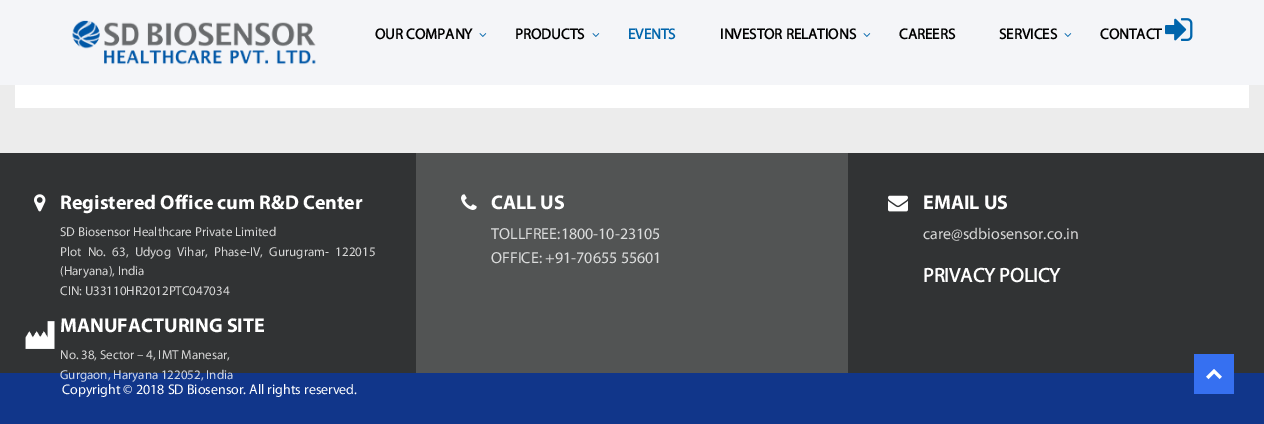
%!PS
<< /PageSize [1264 424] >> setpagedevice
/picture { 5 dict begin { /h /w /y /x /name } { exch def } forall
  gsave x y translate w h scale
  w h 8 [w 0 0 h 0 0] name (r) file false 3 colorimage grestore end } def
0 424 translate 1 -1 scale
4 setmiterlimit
0.925 setgray
0 0 1264 424 rectfill
0.957 0.961 0.973 setrgbcolor
0 0 1264 85 rectfill
(img1.rgb) 72 20 244 45 picture
/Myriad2-Bold [15 0 0 -15 0 0] selectfont
0 setgray
375 39 moveto (OUR COMPANY) show
(img2.rgb) 479 33 8 4 picture
515 39 moveto (PRODUCTS) show
(img2.rgb) 592 33 8 4 picture
0 0.396 0.675 setrgbcolor
628 39 moveto (EVENTS) show
0 setgray
720 39 moveto (INVESTOR RELATIONS) show
(img2.rgb) 863 33 8 4 picture
899 39 moveto (CAREERS) show
999 39 moveto (SERVICES) show
(img2.rgb) 1064 33 8 4 picture
1100 39 moveto (CONTACT) show
(img3.rgb) 1165 18 28 23 picture
1 setgray
15 85 1234 23 rectfill
0.192 0.2 0.204 setrgbcolor
0 153 416 220 rectfill
(img4.rgb) 34 194 12 18 picture
/Myriad-Bold [20 0 0 -20 0 0] selectfont
1 setgray
60 209 moveto (Registered Office cum R&D Center) show
/Myriad-Regular [13 0 0 -13 0 0] selectfont
0.839 setgray
60 236 moveto (SD Biosensor Healthcare Private Limited) show
60 256 moveto 3.5 0 32 (Plot No. 63, Udyog Vihar, Phase-IV, Gurugram- 122015) widthshow
60 275 moveto (\(Haryana\), India) show
60 295 moveto (CIN: U33110HR2012PTC047034) show
(img5.rgb) 25 321 30 28 picture
/Myriad-Bold [20 0 0 -20 0 0] selectfont
1 setgray
60 332 moveto (MANUFACTURING SITE) show
/Myriad-Regular [13 0 0 -13 0 0] selectfont
0.839 setgray
60 359 moveto (No. 38, Sector – 4, IMT Manesar,) show
0.067 0.212 0.541 setrgbcolor
0 373 1264 51 rectfill
0.82 0.843 0.894 setrgbcolor
60 379 moveto (Gurgaon, Haryana 122052, India) show
0.322 0.329 0.329 setrgbcolor
416 153 432 220 rectfill
(img6.rgb) 461 194 16 16 picture
/Myriad-Bold [20 0 0 -20 0 0] selectfont
1 setgray
491 209 moveto (CALL US) show
/Myriad-Regular [16 0 0 -16 0 0] selectfont
0.863 0.867 0.867 setrgbcolor
491 239 moveto (TOLLFREE:1800-10-23105) show
491 263 moveto (OFFICE: +91-70655 55601) show
0.192 0.2 0.204 setrgbcolor
848 153 416 220 rectfill
(img7.rgb) 888 195 20 17 picture
/Myriad-Bold [20 0 0 -20 0 0] selectfont
1 setgray
923 209 moveto (EMAIL US) show
/Myriad-Regular [16 0 0 -16 0 0] selectfont
0.839 setgray
923 239 moveto (care@sdbiosensor.co.in) show
/Myriad2-Bold [20 0 0 -20 0 0] selectfont
1 setgray
923 282 moveto (PRIVACY POLICY) show
/Myriad-Regular [14 0 0 -14 0 0] selectfont
62 394 moveto (Copyright © 2018 SD Biosensor. All rights reserved.) show
0.212 0.439 0.945 setrgbcolor
1194 354 40 40 rectfill
(img8.rgb) 1206 369 16 11 picture
showpage
